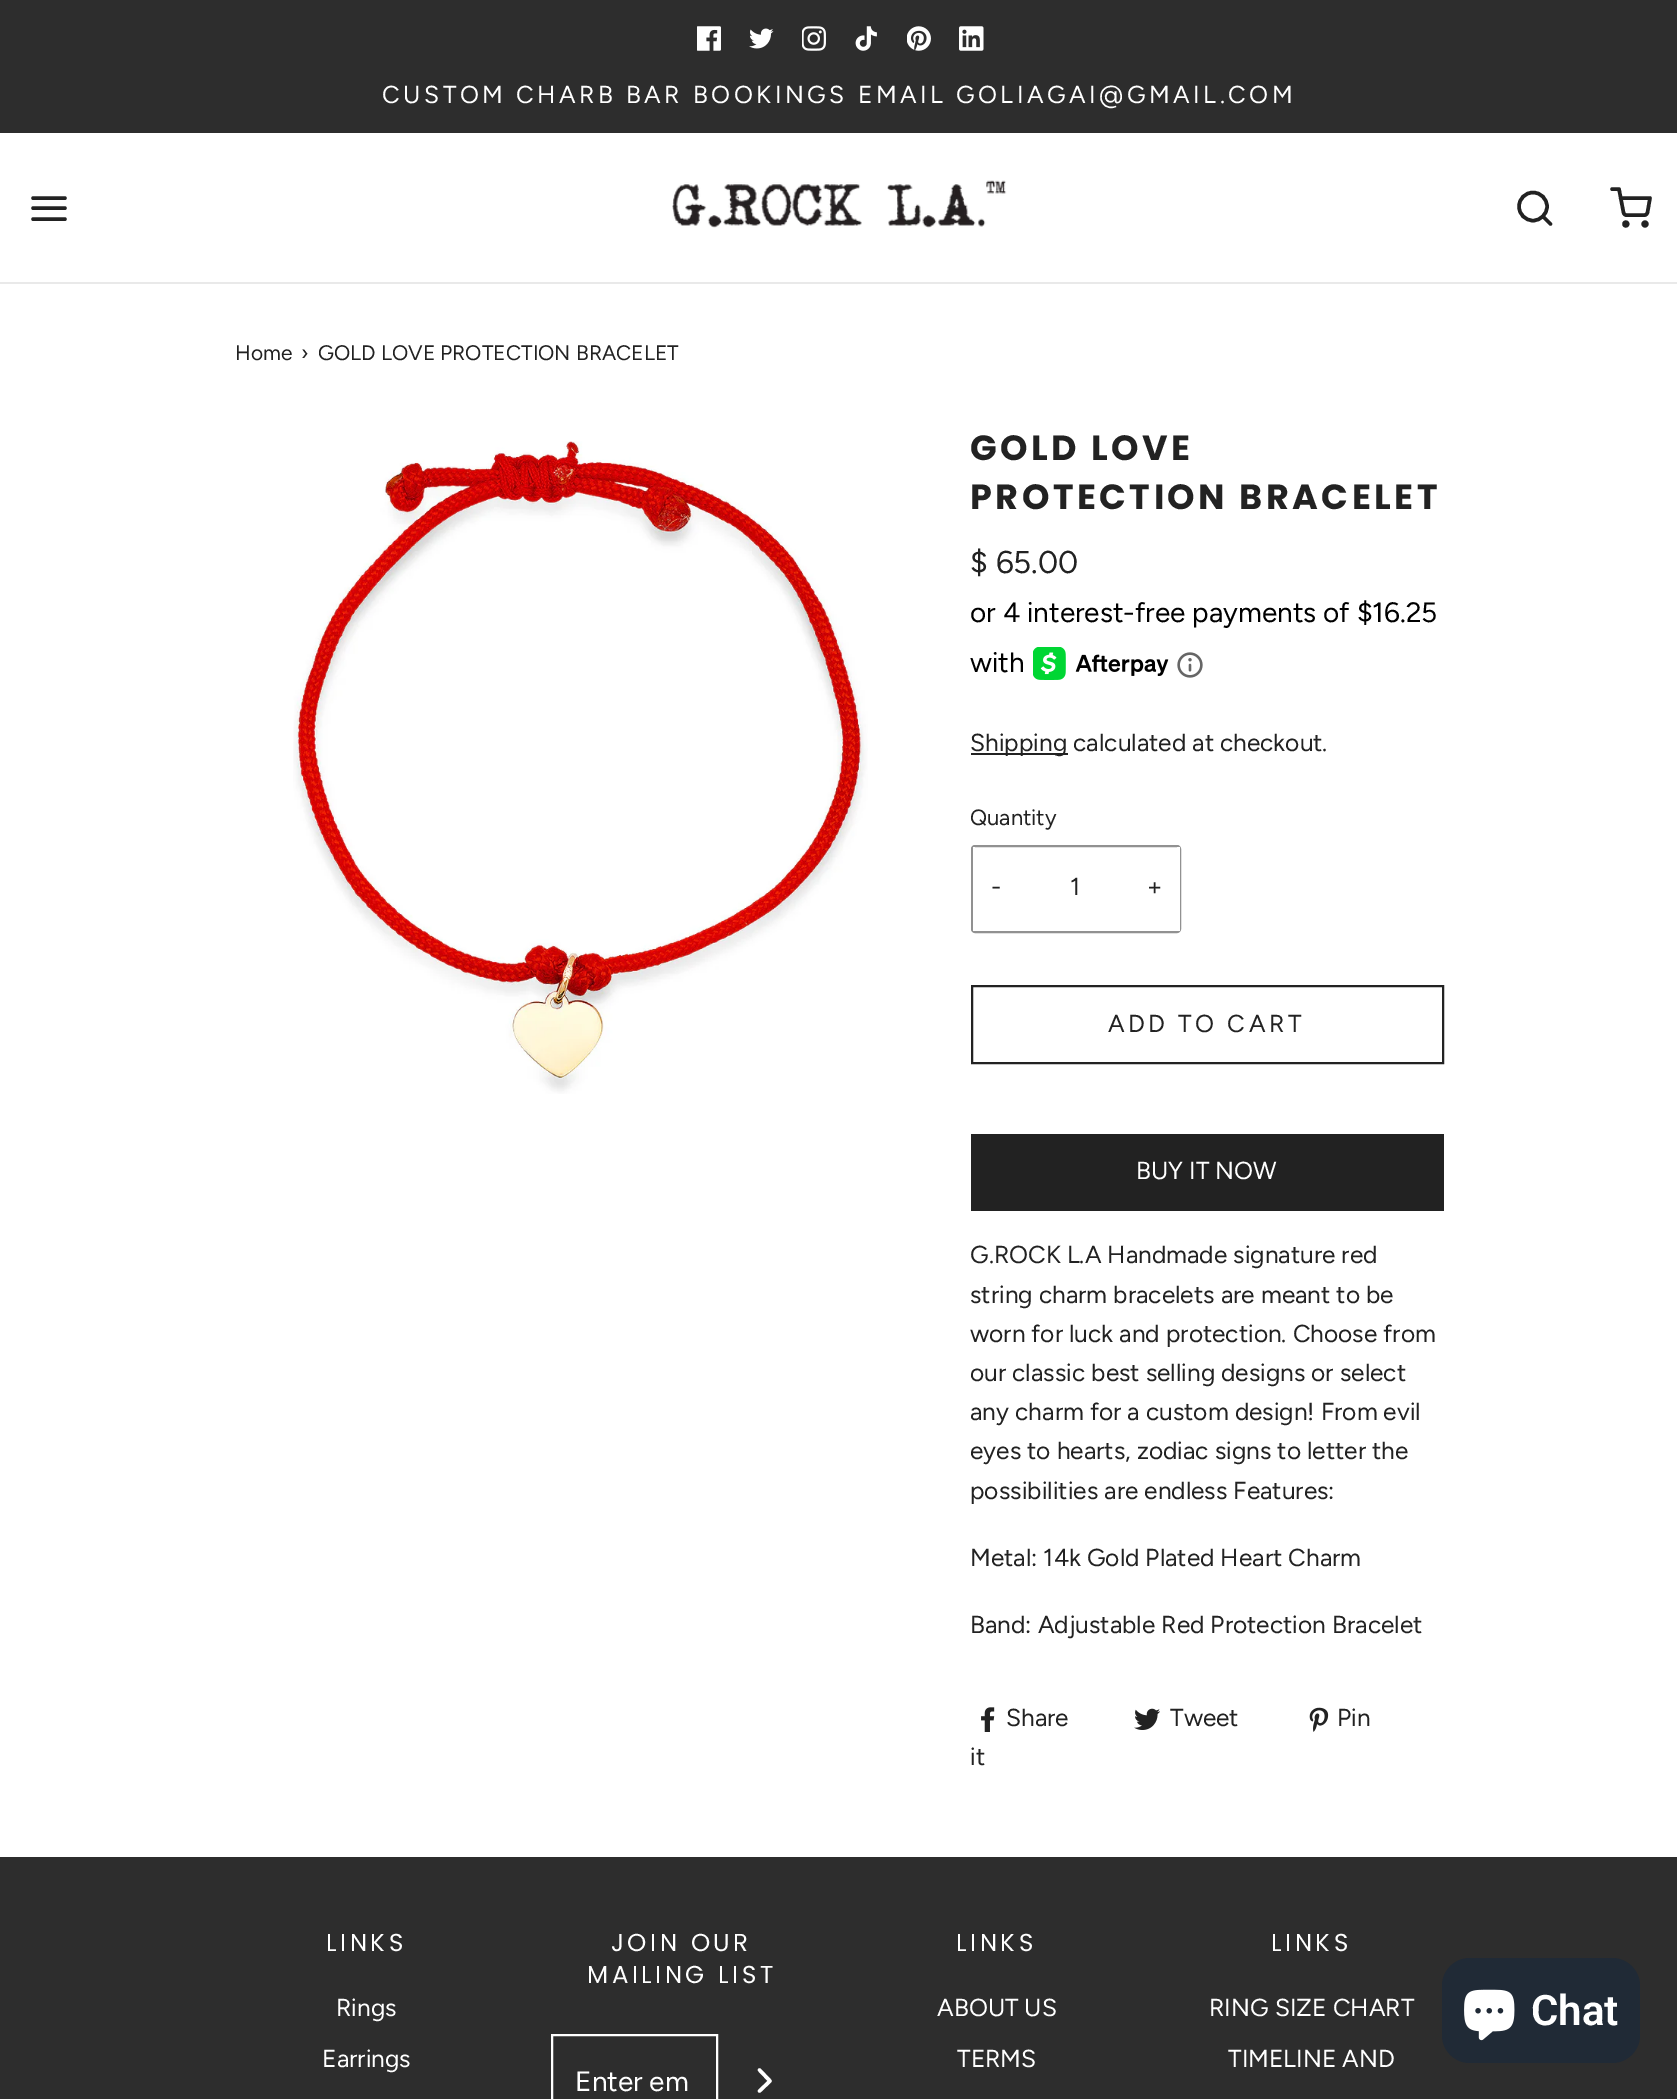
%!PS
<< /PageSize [1677 2099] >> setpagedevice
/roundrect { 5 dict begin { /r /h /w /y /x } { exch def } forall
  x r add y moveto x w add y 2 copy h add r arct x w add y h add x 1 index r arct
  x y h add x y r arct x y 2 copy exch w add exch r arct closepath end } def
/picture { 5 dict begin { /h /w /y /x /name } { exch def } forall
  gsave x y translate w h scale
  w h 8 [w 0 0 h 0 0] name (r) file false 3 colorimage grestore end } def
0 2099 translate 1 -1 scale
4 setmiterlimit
1 setgray
0 0 1677 2099 rectfill
0.176 setgray
0 0 1677 133 rectfill
(img1.rgb) 697 26 24 25 picture
(img2.rgb) 749 28 25 21 picture
(img3.rgb) 802 26 24 25 picture
(img4.rgb) 855 26 22 25 picture
(img5.rgb) 907 26 24 25 picture
(img6.rgb) 959 26 25 25 picture
/Figtree-Regular [24.5 0 0 -24.5 0 0] selectfont
1 setgray
382 103 moveto 3.5 0 (CUSTOM CHARB BAR BOOKINGS EMAIL GOLIAGAI@GMAIL.COM) ashow
0.914 setgray
0 282 1677 2 rectfill
0.133 setgray
3.5 setlinewidth
1 setlinecap
1 setlinejoin
newpath 33 208 moveto 65 208 lineto 33 198 moveto 65 198 lineto 33 219 moveto 65 219 lineto stroke
(img7.rgb) 672 180 335 48 picture
0 setlinecap
0 setlinejoin
newpath 1533 206.5 14 0 360 arc closepath stroke
1 setlinecap
1 setlinejoin
newpath 1550.5 224 moveto 1543 216.5 lineto stroke
0 setlinecap
0 setlinejoin
newpath 1625.8 224 1.8 0 360 arc closepath stroke
newpath 1645 224 1.8 0 360 arc closepath stroke
1 setlinecap
1 setlinejoin
newpath 1612 189 moveto 1619 189 lineto 1623.5 212.5 lineto 1624 214 1625 215.5 1627 215 curveto 1644 215 lineto 1645.5 215.5 1647 214 1647.5 212.5 curveto 1650 198 lineto 1620.5 198 lineto stroke
/Figtree-Regular [21 0 0 -21 0 0] selectfont
235 360 moveto (Home) show
301 360 moveto (›) show
318 360 moveto (GOLD LOVE PROTECTION BRACELET) show
(img8.rgb) 293 441 575 653 picture
/Poppins-Bold [35 0 0 -35 0 0] selectfont
970 460 moveto 3.5 0 (GOLD LOVE) ashow
970 509 moveto 3.5 0 (PROTECTION BRACELET) ashow
/Figtree-Regular [31.5 0 0 -31.5 0 0] selectfont
970 573 moveto ($ 65.00) show
/Figtree-Regular [28 0 0 -28 0 0] selectfont
0 setgray
970 622 moveto (or 4 interest-free payments of $16.25) show
970 672 moveto (with) show
(img9.rgb) 1033 647 136 33 picture
(img10.rgb) 1177 652 26 26 picture
0.133 setgray
971 753 97 2 rectfill
/Figtree-Regular [24.5 0 0 -24.5 0 0] selectfont
970 751 moveto (Shipping calculated at checkout.) show
/Figtree-Regular [22 0 0 -22 0 0] selectfont
970 825 moveto (Quantity) show
0.569 setgray
2 setlinewidth
0 setlinecap
0 setlinejoin
972 846 208 86 3 roundrect stroke
1 setgray
973 847 2 84 rectfill
/Figtree-Regular [24.5 0 0 -24.5 0 0] selectfont
0.133 setgray
991 895 moveto (-) show
1070 895 moveto (1) show
1 setgray
1177 847 3 84 rectfill
0.133 setgray
1147 895 moveto (+) show
972 986 471 77 rectstroke
1108 1032 moveto 3.5 0 (ADD TO CART) ashow
971 1134 473 77 rectfill
1 setgray
1136 1179 moveto (BUY IT NOW) show
0.133 setgray
970 1263 moveto (G.ROCK L.A Handmade signature red) show
970 1303 moveto (string charm bracelets are meant to be) show
970 1342 moveto (worn for luck and protection. Choose from) show
970 1381 moveto (our classic best selling designs or select) show
970 1420 moveto (any charm for a custom design! From evil) show
970 1459 moveto (eyes to hearts, zodiac signs to letter the) show
970 1499 moveto (possibilities are endless Features:) show
970 1566 moveto (Metal: 14k Gold Plated Heart Charm) show
970 1633 moveto (Band: Adjustable Red Protection Bracelet) show
(img11.rgb) 981 1707 14 25 picture
1006 1726 moveto (Share) show
(img12.rgb) 1134 1708 26 22 picture
1170 1726 moveto (Tweet) show
(img13.rgb) 1309 1707 20 25 picture
1337 1726 moveto (Pin) show
970 1765 moveto (it) show
0.176 setgray
0 1857 1677 242 rectfill
/Poppins-Regular [24.5 0 0 -24.5 0 0] selectfont
1 setgray
326 1951 moveto 3.5 0 (LINKS) ashow
/Figtree-Regular [24.5 0 0 -24.5 0 0] selectfont
336 2016 moveto (Rings) show
322 2067 moveto (Earrings) show
/Poppins-Regular [24.5 0 0 -24.5 0 0] selectfont
611 1951 moveto 3.5 0 (JOIN OUR) ashow
587 1983 moveto 3.5 0 (MAILING LIST) ashow
552 2035 165 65 rectstroke
/Figtree-Regular [28 0 0 -28 0 0] selectfont
575 2091 moveto (Enter em) show
3.5 setlinewidth
1 setlinecap
1 setlinejoin
newpath 759.5 2091 moveto 770 2081 lineto 759.5 2070 lineto stroke
/Poppins-Regular [24.5 0 0 -24.5 0 0] selectfont
956 1951 moveto 3.5 0 (LINKS) ashow
/Figtree-Regular [24.5 0 0 -24.5 0 0] selectfont
937 2016 moveto (ABOUT US) show
957 2067 moveto (TERMS) show
/Poppins-Regular [24.5 0 0 -24.5 0 0] selectfont
1271 1951 moveto 3.5 0 (LINKS) ashow
/Figtree-Regular [24.5 0 0 -24.5 0 0] selectfont
1209 2016 moveto (RING SIZE CHART) show
1228 2067 moveto (TIMELINE AND) show
0.125 0.165 0.212 setrgbcolor
1442 1958 198 105 28 roundrect fill
(img14.rgb) 1464 1989 51 52 picture
/Roboto-SemiBold [42 0 0 -42 0 0] selectfont
1 setgray
1531 2025 moveto (Chat) show
showpage
